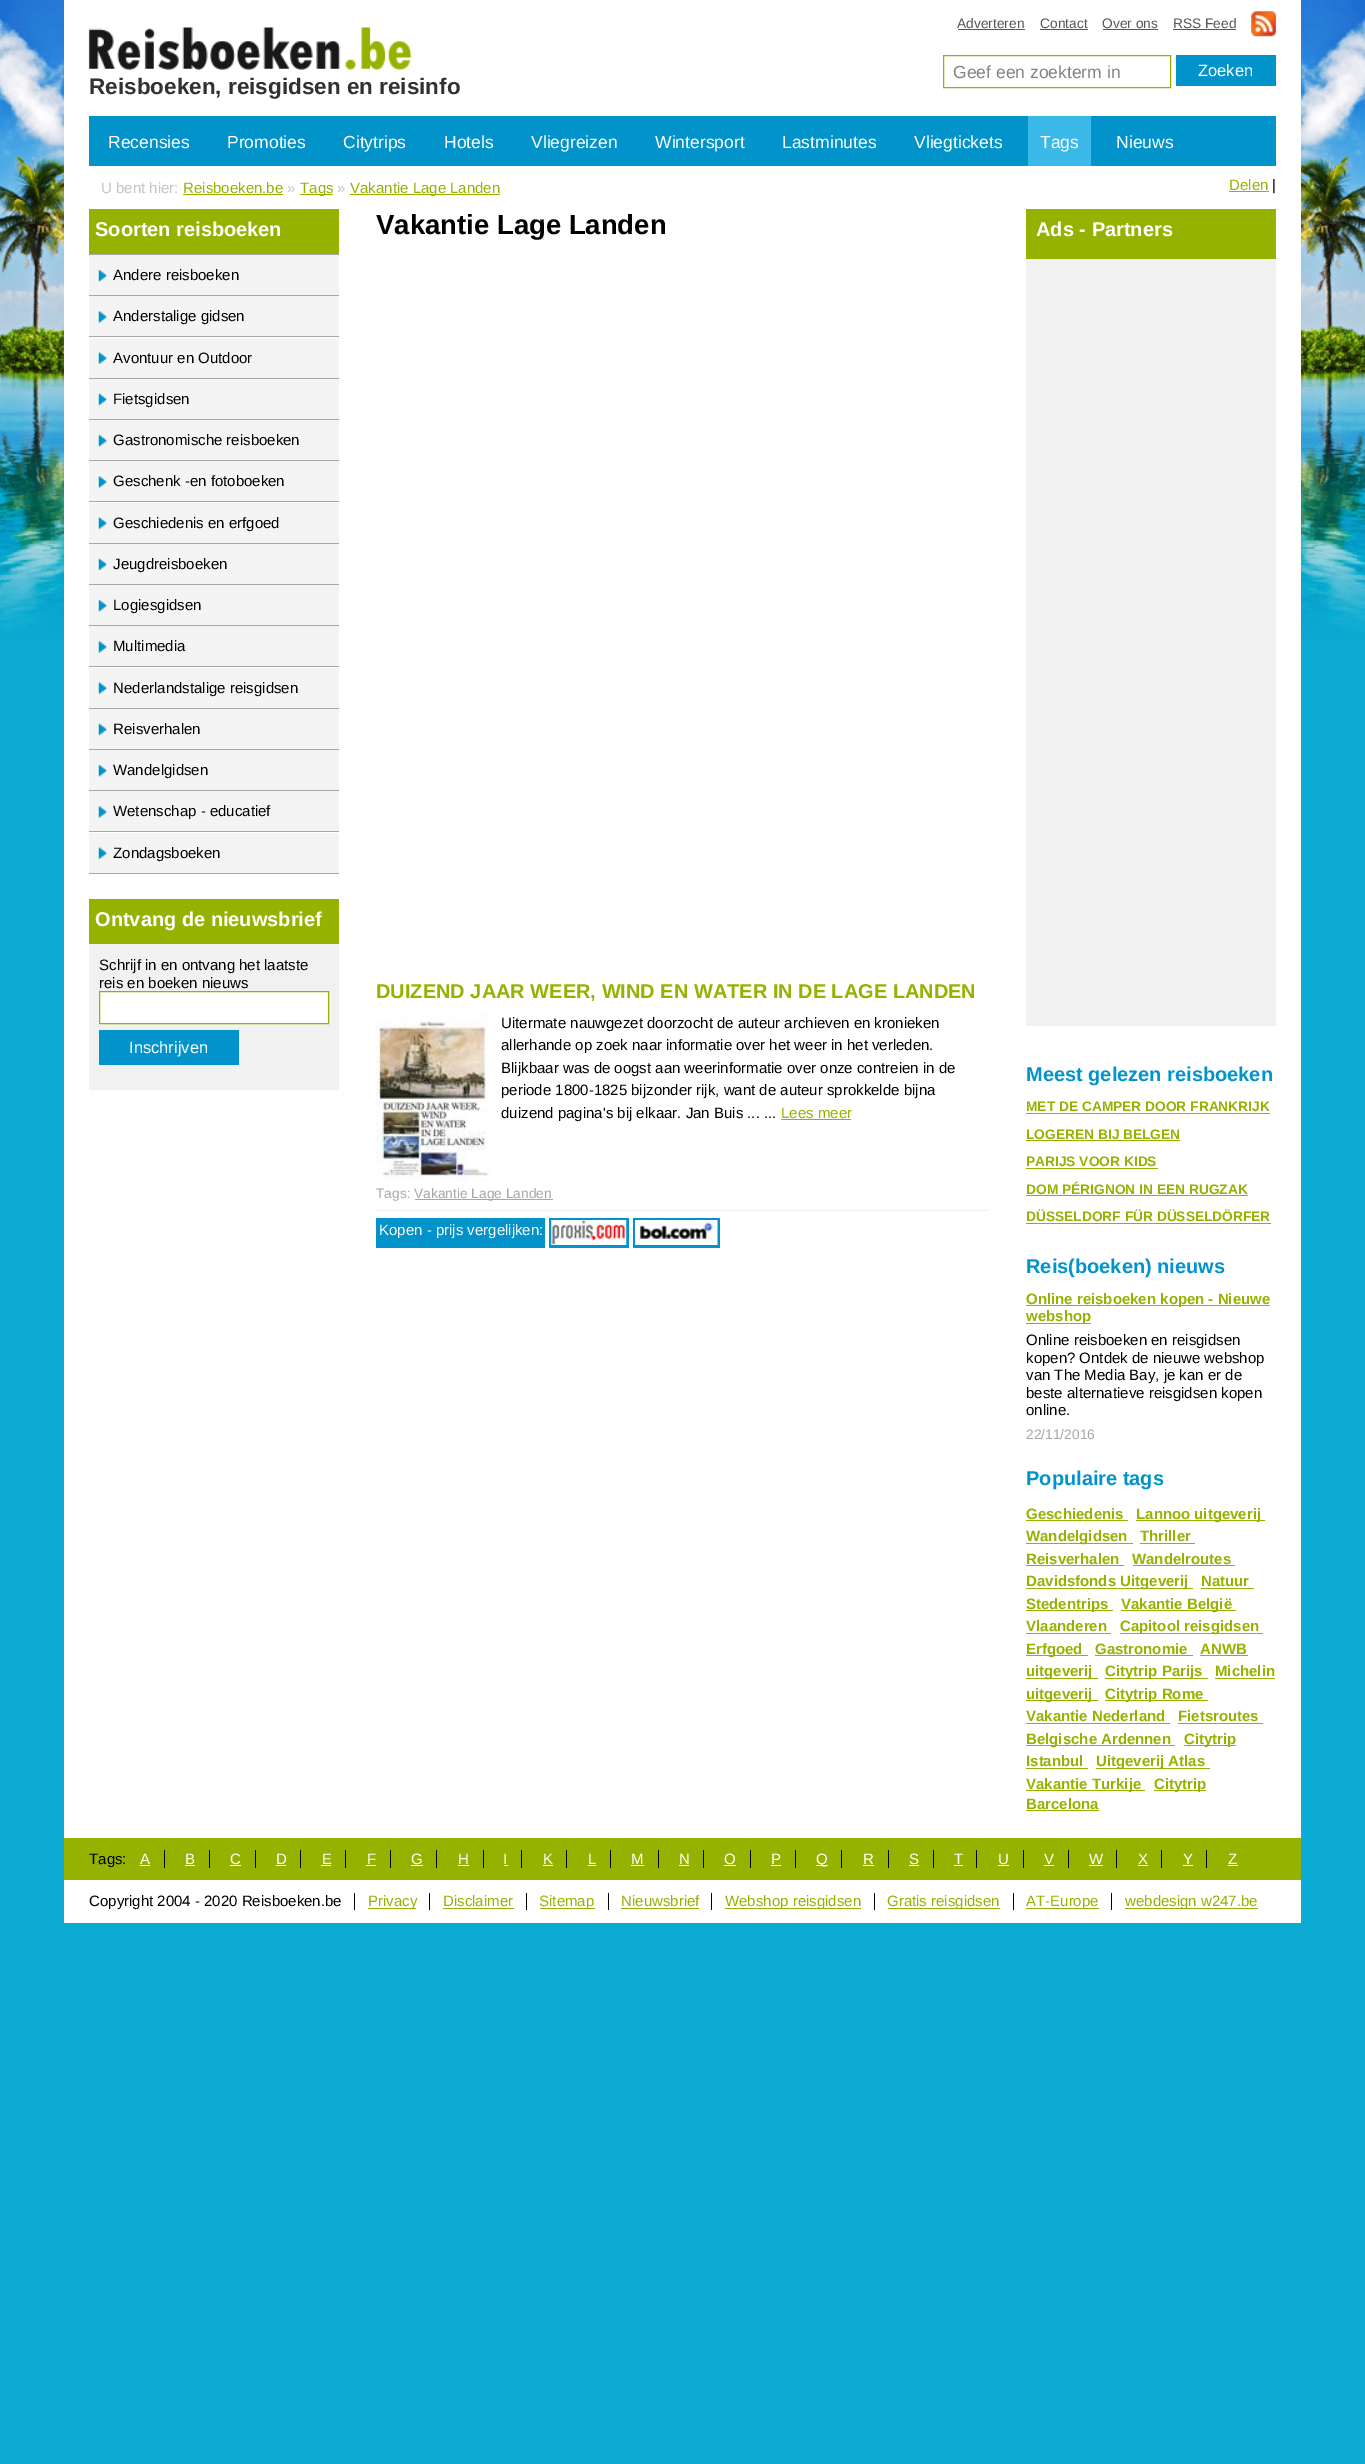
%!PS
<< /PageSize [1365 2464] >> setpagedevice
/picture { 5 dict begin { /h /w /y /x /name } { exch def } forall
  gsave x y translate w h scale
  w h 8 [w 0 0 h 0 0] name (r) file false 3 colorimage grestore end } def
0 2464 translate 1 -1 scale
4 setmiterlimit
0.043 0.671 0.827 setrgbcolor
0 0 1365 2464 rectfill
(img1.rgb) 0 0 1365 640 picture
1 setgray
64 0 1237 1923 rectfill
/LiberationSans-Regular [13.75 0 0 -13.75 0 0] selectfont
0.337 setgray
957 28 moveto (Adverteren) show
958 29 67 1 rectfill
1040 28 moveto (Contact) show
1040 29 48 1 rectfill
1102 28 moveto (Over ons) show
1103 29 55 1 rectfill
1173 28 moveto (RSS Feed) show
1173 29 63 1 rectfill
(img2.rgb) 1251 11 26 26 picture
0.588 0.698 0 setrgbcolor
943.5 55.5 227 32 rectstroke
/LiberationSans-Regular [17.5 0 0 -17.5 0 0] selectfont
0.514 setgray
953 78 moveto (Geef een zoekterm in) show
0.008 0.576 0.792 setrgbcolor
1176 55 100 31 rectfill
/LiberationSans-Regular [16.5 0 0 -16.5 0 0] selectfont
1 setgray
1198 76 moveto (Zoeken) show
(img3.rgb) 88 27 324 43 picture
/LiberationSans-Bold [22.5 0 0 -22.5 0 0] selectfont
0.196 setgray
89 94 moveto (Reisboeken, reisgidsen en reisinfo) show
0.008 0.576 0.792 setrgbcolor
89 116 1187 50 rectfill
/LiberationSans-Regular [17.5 0 0 -17.5 0 0] selectfont
1 setgray
108 148 moveto (Recensies) show
227 148 moveto (Promoties) show
343 148 moveto (Citytrips) show
444 148 moveto (Hotels) show
531 148 moveto (Vliegreizen) show
655 148 moveto (Wintersport) show
782 148 moveto (Lastminutes) show
914 148 moveto (Vliegtickets) show
0.227 0.725 0.914 setrgbcolor
1028 116 63 50 rectfill
1 setgray
1040 148 moveto (Tags) show
1116 148 moveto (Nieuws) show
/LiberationSans-Regular [15 0 0 -15 0 0] selectfont
0.769 setgray
101 193 moveto (U bent hier:) show
0.588 0.698 0 setrgbcolor
183 193 moveto (Reisboeken.be) show
183 194 100 1 rectfill
0.769 setgray
287 193 moveto (») show
0.588 0.698 0 setrgbcolor
300 194 33 1 rectfill
300 193 moveto (Tags) show
0.769 setgray
337 193 moveto (») show
0.588 0.698 0 setrgbcolor
350 194 150 1 rectfill
350 193 moveto (Vakantie Lage Landen) show
1229 190 moveto (Delen) show
1229 191 40 1 rectfill
0 setgray
1272 190 moveto (|) show
0.588 0.698 0 setrgbcolor
89 209 250 45 rectfill
/LiberationSans-Bold [20 0 0 -20 0 0] selectfont
1 setgray
95 236 moveto (Soorten reisboeken) show
0.655 setgray
89 873 250 1 rectfill
89 254 250 1 rectfill
0.957 setgray
89 255 250 40 rectfill
(img4.rgb) 98 269 9 13 picture
/LiberationSans-Regular [15 0 0 -15 0 0] selectfont
0 setgray
113 280 moveto (Andere reisboeken) show
0.655 setgray
89 295 250 1 rectfill
0.957 setgray
89 296 250 40 rectfill
(img5.rgb) 98 311 9 12 picture
0 setgray
113 321 moveto (Anderstalige gidsen) show
0.655 setgray
89 336 250 1 rectfill
0.957 setgray
89 338 250 40 rectfill
(img6.rgb) 98 352 9 12 picture
0 setgray
113 363 moveto (Avontuur en Outdoor) show
0.655 setgray
89 378 250 1 rectfill
0.957 setgray
89 379 250 40 rectfill
(img7.rgb) 98 393 9 13 picture
0 setgray
113 404 moveto (Fietsgidsen) show
0.655 setgray
89 419 250 1 rectfill
0.957 setgray
89 420 250 40 rectfill
(img4.rgb) 98 434 9 13 picture
0 setgray
113 445 moveto (Gastronomische reisboeken) show
0.655 setgray
89 460 250 1 rectfill
0.957 setgray
89 461 250 40 rectfill
(img5.rgb) 98 476 9 12 picture
0 setgray
113 486 moveto (Geschenk -en fotoboeken) show
0.655 setgray
89 501 250 1 rectfill
0.957 setgray
89 503 250 40 rectfill
(img6.rgb) 98 517 9 12 picture
0 setgray
113 528 moveto (Geschiedenis en erfgoed) show
0.655 setgray
89 543 250 1 rectfill
0.957 setgray
89 544 250 40 rectfill
(img7.rgb) 98 558 9 13 picture
0 setgray
113 569 moveto (Jeugdreisboeken) show
0.655 setgray
89 584 250 1 rectfill
0.957 setgray
89 585 250 40 rectfill
(img4.rgb) 98 599 9 13 picture
0 setgray
113 610 moveto (Logiesgidsen) show
0.655 setgray
89 625 250 1 rectfill
0.957 setgray
89 626 250 40 rectfill
(img5.rgb) 98 641 9 12 picture
0 setgray
113 651 moveto (Multimedia) show
0.655 setgray
89 666 250 1 rectfill
0.957 setgray
89 668 250 40 rectfill
(img6.rgb) 98 682 9 12 picture
0 setgray
113 693 moveto (Nederlandstalige reisgidsen) show
0.655 setgray
89 708 250 1 rectfill
0.957 setgray
89 709 250 40 rectfill
(img7.rgb) 98 723 9 13 picture
0 setgray
113 734 moveto (Reisverhalen) show
0.655 setgray
89 749 250 1 rectfill
0.957 setgray
89 750 250 40 rectfill
(img4.rgb) 98 764 9 13 picture
0 setgray
113 775 moveto (Wandelgidsen) show
0.655 setgray
89 790 250 1 rectfill
0.957 setgray
89 791 250 40 rectfill
(img5.rgb) 98 806 9 12 picture
0 setgray
113 816 moveto (Wetenschap - educatief) show
0.655 setgray
89 831 250 1 rectfill
0.957 setgray
89 833 250 40 rectfill
(img6.rgb) 98 847 9 12 picture
0 setgray
113 858 moveto (Zondagsboeken) show
0.945 setgray
89 944 250 146 rectfill
0.588 0.698 0 setrgbcolor
89 899 250 45 rectfill
/LiberationSans-Bold [20 0 0 -20 0 0] selectfont
1 setgray
95 926 moveto (Ontvang de nieuwsbrief) show
/LiberationSans-Regular [15 0 0 -15 0 0] selectfont
0 setgray
99 970 moveto (Schrijf in en ontvang het laatste) show
99 988 moveto (reis en boeken nieuws) show
1 setgray
newpath 99.5 991.5 moveto 328.5 991.5 lineto 328.5 1023.5 lineto 99.5 1023.5 lineto closepath gsave fill grestore
0.588 0.698 0 setrgbcolor
stroke
0.008 0.576 0.792 setrgbcolor
99 1030 140 35 rectfill
/LiberationSans-Regular [16.5 0 0 -16.5 0 0] selectfont
1 setgray
129 1053 moveto (Inschrijven) show
/LiberationSans-Bold [27.5 0 0 -27.5 0 0] selectfont
0 setgray
376 234 moveto (Vakantie Lage Landen) show
/LiberationSans-Bold [20 0 0 -20 0 0] selectfont
0.588 0.698 0 setrgbcolor
376 998 moveto (DUIZEND JAAR WEER, WIND EN WATER IN DE LAGE LANDEN) show
(img8.rgb) 376 1011 113 170 picture
/LiberationSans-Regular [15 0 0 -15 0 0] selectfont
0 setgray
501 1028 moveto (Uitermate nauwgezet doorzocht de auteur archieven en kronieken) show
501 1050 moveto (allerhande op zoek naar informatie over het weer in het verleden.) show
501 1073 moveto (Blijkbaar was de oogst aan weerinformatie over onze contreien in de) show
501 1095 moveto (periode 1800-1825 bijzonder rijk, want de auteur sprokkelde bijna) show
501 1118 moveto (duizend pagina's bij elkaar. Jan Buis ... ...) show
0.588 0.698 0 setrgbcolor
781 1118 moveto (Lees meer) show
781 1119 70 1 rectfill
0.945 setgray
376 1210 613 1 rectfill
/LiberationSans-Regular [13.75 0 0 -13.75 0 0] selectfont
0.655 setgray
376 1198 moveto (Tags:) show
415 1199 138 1 rectfill
414 1198 moveto (Vakantie Lage Landen) show
0.008 0.576 0.792 setrgbcolor
376 1218 169 30 rectfill
/LiberationSans-Regular [15 0 0 -15 0 0] selectfont
1 setgray
379 1235 moveto (Kopen - prijs vergelijken:) show
0.008 0.576 0.792 setrgbcolor
549 1218 80 30 rectfill
(img9.rgb) 551 1220 76 25 picture
633 1218 87 30 rectfill
(img10.rgb) 635 1220 83 25 picture
0.945 setgray
1026 259 250 767 rectfill
0.588 0.698 0 setrgbcolor
1026 209 250 50 rectfill
/LiberationSans-Bold [20 0 0 -20 0 0] selectfont
1 setgray
1036 236 moveto (Ads - Partners) show
0.008 0.576 0.792 setrgbcolor
1026 1081 moveto (Meest gelezen reisboeken) show
/LiberationSans-Bold [13.75 0 0 -13.75 0 0] selectfont
0.588 0.698 0 setrgbcolor
1026 1111 moveto (MET DE CAMPER DOOR FRANKRIJK) show
1026 1113 244 1 rectfill
1026 1139 moveto (LOGEREN BIJ BELGEN) show
1026 1140 154 1 rectfill
1026 1166 moveto (PARIJS VOOR KIDS) show
1026 1168 132 1 rectfill
1026 1194 moveto (DOM PÉRIGNON IN EEN RUGZAK) show
1026 1195 222 1 rectfill
1026 1221 moveto (DÜSSELDORF FÜR DÜSSELDÖRFER) show
1026 1223 245 1 rectfill
/LiberationSans-Bold [20 0 0 -20 0 0] selectfont
0.008 0.576 0.792 setrgbcolor
1026 1273 moveto (Reis\(boeken\) nieuws) show
0.588 0.698 0 setrgbcolor
1026 1305 244 1 rectfill
/LiberationSans-Bold [15 0 0 -15 0 0] selectfont
1026 1304 moveto (Online reisboeken kopen - Nieuwe) show
1026 1323 65 1 rectfill
1026 1321 moveto (webshop) show
/LiberationSans-Regular [15 0 0 -15 0 0] selectfont
0 setgray
1026 1345 moveto (Online reisboeken en reisgidsen) show
1026 1363 moveto (kopen? Ontdek de nieuwe webshop) show
1026 1380 moveto (van The Media Bay, je kan er de) show
1026 1398 moveto (beste alternatieve reisgidsen kopen) show
1026 1415 moveto (online.) show
/LiberationSans-Regular [13.75 0 0 -13.75 0 0] selectfont
0.655 setgray
1026 1439 moveto (22/11/2016) show
/LiberationSans-Bold [20 0 0 -20 0 0] selectfont
0.008 0.576 0.792 setrgbcolor
1026 1485 moveto (Populaire tags) show
/LiberationSans-Bold [15 0 0 -15 0 0] selectfont
0.588 0.698 0 setrgbcolor
1026 1519 moveto (Geschiedenis) show
1026 1520 102 1 rectfill
1136 1520 129 1 rectfill
1136 1519 moveto (Lannoo uitgeverij) show
1026 1543 107 1 rectfill
1026 1541 moveto (Wandelgidsen) show
1140 1541 moveto (Thriller) show
1140 1543 55 1 rectfill
1026 1564 moveto (Reisverhalen) show
1026 1565 98 1 rectfill
1132 1564 moveto (Wandelroutes) show
1133 1565 102 1 rectfill
1026 1588 167 1 rectfill
1026 1586 moveto (Davidsfonds Uitgeverij) show
1201 1586 moveto (Natuur) show
1201 1588 53 1 rectfill
1026 1610 87 1 rectfill
1026 1609 moveto (Stedentrips) show
1121 1610 115 1 rectfill
1121 1609 moveto (Vakantie België) show
1026 1631 moveto (Vlaanderen) show
1026 1633 85 1 rectfill
1120 1633 143 1 rectfill
1120 1631 moveto (Capitool reisgidsen) show
1026 1655 62 1 rectfill
1026 1654 moveto (Erfgoed) show
1095 1654 moveto (Gastronomie) show
1095 1655 98 1 rectfill
1200 1654 moveto (ANWB) show
1200 1655 48 1 rectfill
1026 1678 72 1 rectfill
1026 1676 moveto (uitgeverij) show
1105 1678 103 1 rectfill
1105 1676 moveto (Citytrip Parijs) show
1215 1676 moveto (Michelin) show
1215 1678 60 1 rectfill
1026 1700 72 1 rectfill
1026 1699 moveto (uitgeverij) show
1105 1700 103 1 rectfill
1105 1699 moveto (Citytrip Rome) show
1026 1721 moveto (Vakantie Nederland) show
1026 1723 144 1 rectfill
1178 1721 moveto (Fietsroutes) show
1178 1723 85 1 rectfill
1026 1745 149 1 rectfill
1026 1744 moveto (Belgische Ardennen) show
1184 1745 52 1 rectfill
1184 1744 moveto (Citytrip) show
1026 1766 moveto (Istanbul) show
1026 1768 62 1 rectfill
1096 1768 114 1 rectfill
1096 1766 moveto (Uitgeverij Atlas) show
1026 1790 119 1 rectfill
1026 1789 moveto (Vakantie Turkije) show
1154 1790 52 1 rectfill
1154 1789 moveto (Citytrip) show
1026 1809 moveto (Barcelona) show
1026 1810 73 1 rectfill
64 1838 1237 42 rectfill
/LiberationSans-Regular [15 0 0 -15 0 0] selectfont
0 setgray
89 1864 moveto (Tags:) show
1 setgray
140 1864 moveto (A) show
140 1865 10 1 rectfill
0 setgray
164 1850 1 18 rectfill
1 setgray
185 1864 moveto (B) show
185 1865 10 1 rectfill
0 setgray
209 1850 1 18 rectfill
1 setgray
230 1864 moveto (C) show
230 1865 11 1 rectfill
0 setgray
255 1850 1 18 rectfill
1 setgray
276 1864 moveto (D) show
276 1865 10 1 rectfill
0 setgray
300 1850 1 18 rectfill
1 setgray
322 1864 moveto (E) show
321 1865 10 1 rectfill
0 setgray
345 1850 1 18 rectfill
1 setgray
367 1864 moveto (F) show
366 1865 10 1 rectfill
0 setgray
390 1850 1 18 rectfill
1 setgray
411 1864 moveto (G) show
411 1865 12 1 rectfill
0 setgray
436 1850 1 18 rectfill
1 setgray
458 1864 moveto (H) show
458 1865 11 1 rectfill
0 setgray
483 1850 1 18 rectfill
1 setgray
503 1864 moveto (I) show
504 1865 4 1 rectfill
0 setgray
521 1850 1 18 rectfill
1 setgray
543 1864 moveto (K) show
543 1865 10 1 rectfill
0 setgray
566 1850 1 18 rectfill
1 setgray
588 1864 moveto (L) show
588 1865 8 1 rectfill
0 setgray
610 1850 1 18 rectfill
1 setgray
631 1864 moveto (M) show
631 1865 13 1 rectfill
0 setgray
658 1850 1 18 rectfill
1 setgray
679 1864 moveto (N) show
679 1865 10 1 rectfill
0 setgray
703 1850 1 18 rectfill
1 setgray
724 1864 moveto (O) show
724 1865 12 1 rectfill
0 setgray
750 1850 1 18 rectfill
1 setgray
771 1864 moveto (P) show
771 1865 10 1 rectfill
0 setgray
795 1850 1 18 rectfill
1 setgray
816 1865 12 1 rectfill
816 1864 moveto (Q) show
0 setgray
841 1850 1 18 rectfill
1 setgray
863 1864 moveto (R) show
863 1865 11 1 rectfill
0 setgray
888 1850 1 18 rectfill
1 setgray
909 1864 moveto (S) show
909 1865 10 1 rectfill
0 setgray
933 1850 1 18 rectfill
1 setgray
954 1864 moveto (T) show
954 1865 9 1 rectfill
0 setgray
976 1850 1 18 rectfill
1 setgray
998 1864 moveto (U) show
998 1865 11 1 rectfill
0 setgray
1023 1850 1 18 rectfill
1 setgray
1044 1864 moveto (V) show
1044 1865 10 1 rectfill
0 setgray
1068 1850 1 18 rectfill
1 setgray
1089 1864 moveto (W) show
1089 1865 14 1 rectfill
0 setgray
1116 1850 1 18 rectfill
1 setgray
1138 1864 moveto (X) show
1138 1865 10 1 rectfill
0 setgray
1161 1850 1 18 rectfill
1 setgray
1183 1864 moveto (Y) show
1183 1865 10 1 rectfill
0 setgray
1206 1850 1 18 rectfill
1 setgray
1228 1864 moveto (Z) show
1228 1865 10 1 rectfill
0 setgray
89 1906 moveto (Copyright 2004 - 2020 Reisboeken.be) show
354 1893 1 17 rectfill
0.588 0.698 0 setrgbcolor
368 1908 48 1 rectfill
368 1906 moveto (Privacy) show
0 setgray
429 1893 1 17 rectfill
0.588 0.698 0 setrgbcolor
443 1906 moveto (Disclaimer) show
443 1908 71 1 rectfill
0 setgray
526 1893 1 17 rectfill
0.588 0.698 0 setrgbcolor
540 1908 55 1 rectfill
539 1906 moveto (Sitemap) show
0 setgray
608 1893 1 17 rectfill
0.588 0.698 0 setrgbcolor
621 1906 moveto (Nieuwsbrief) show
621 1908 78 1 rectfill
0 setgray
711 1893 1 17 rectfill
0.588 0.698 0 setrgbcolor
725 1908 136 1 rectfill
725 1906 moveto (Webshop reisgidsen) show
0 setgray
874 1893 1 17 rectfill
0.588 0.698 0 setrgbcolor
888 1908 112 1 rectfill
887 1906 moveto (Gratis reisgidsen) show
0 setgray
1013 1893 1 17 rectfill
0.588 0.698 0 setrgbcolor
1026 1908 73 1 rectfill
1026 1906 moveto (AT-Europe) show
0 setgray
1111 1893 1 17 rectfill
0.588 0.698 0 setrgbcolor
1125 1908 133 1 rectfill
1125 1906 moveto (webdesign w247.be) show
showpage
